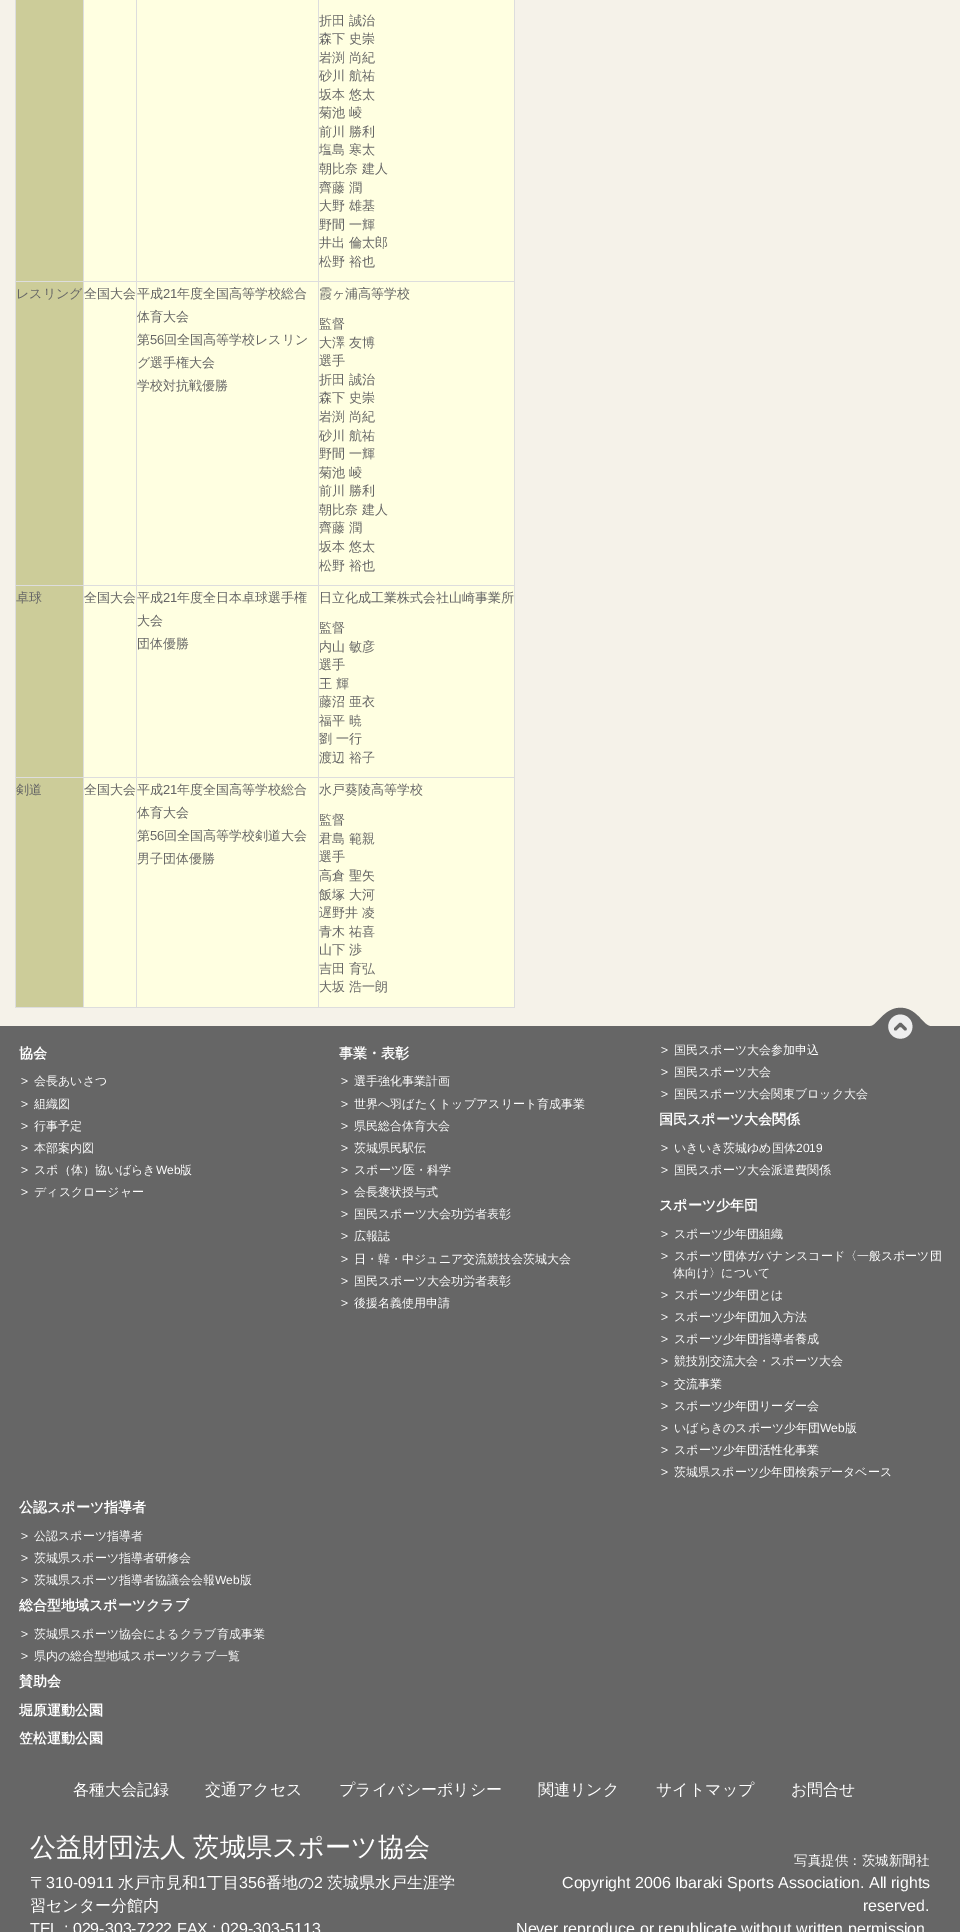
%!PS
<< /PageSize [960 1932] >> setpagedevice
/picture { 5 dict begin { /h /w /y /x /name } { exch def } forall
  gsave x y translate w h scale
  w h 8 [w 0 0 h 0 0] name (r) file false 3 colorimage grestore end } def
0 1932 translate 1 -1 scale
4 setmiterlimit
0.961 0.949 0.914 setrgbcolor
0 0 960 1932 rectfill
0.867 setgray
514 0 1 1008 rectfill
15 1007 500 1 rectfill
15 0 1 1008 rectfill
0.8 0.8 0.6 setrgbcolor
16 0 67 281 rectfill
1 1 0.882 setrgbcolor
84 0 52 281 rectfill
0.867 setgray
318 281 197 1 rectfill
318 585 197 1 rectfill
318 777 197 1 rectfill
318 777 1 231 rectfill
136 777 183 1 rectfill
318 585 1 193 rectfill
136 585 183 1 rectfill
318 281 1 305 rectfill
136 281 183 1 rectfill
136 777 1 231 rectfill
83 777 54 1 rectfill
136 585 1 193 rectfill
83 585 54 1 rectfill
136 281 1 305 rectfill
83 281 54 1 rectfill
83 777 1 231 rectfill
15 777 69 1 rectfill
83 585 1 193 rectfill
15 585 69 1 rectfill
83 281 1 305 rectfill
15 281 69 1 rectfill
83 0 1 282 rectfill
1 1 0.882 setrgbcolor
137 0 181 281 rectfill
0.867 setgray
136 0 1 282 rectfill
1 1 0.882 setrgbcolor
319 0 195 281 rectfill
0.867 setgray
318 0 1 282 rectfill
/WenQuanYiZenHei-Medium [13 0 0 -13 0 0] selectfont
0.4 setgray
319 25 moveto (折田 誠治) show
319 43 moveto (森下 史崇) show
319 62 moveto (岩渕 尚紀) show
319 80 moveto (砂川 航祐) show
319 99 moveto (坂本 悠太) show
319 117 moveto (菊池 崚) show
319 136 moveto (前川 勝利) show
319 154 moveto (塩島 寒太) show
319 173 moveto (朝比奈 建人) show
319 192 moveto (齊藤 潤) show
319 210 moveto (大野 雄基) show
319 229 moveto (野間 一輝) show
319 247 moveto (井出 倫太郎) show
319 266 moveto (松野 裕也) show
0.8 0.8 0.6 setrgbcolor
16 282 67 303 rectfill
0.4 setgray
16 298 moveto (レスリング) show
1 1 0.882 setrgbcolor
84 282 52 303 rectfill
0.4 setgray
84 298 moveto (全国大会) show
1 1 0.882 setrgbcolor
137 282 181 303 rectfill
0.4 setgray
137 298 moveto (平成) show
/LiberationSans-Regular [13 0 0 -13 0 0] selectfont
163 298 moveto (21) show
/WenQuanYiZenHei-Medium [13 0 0 -13 0 0] selectfont
177 298 moveto (年度全国高等学校総合) show
137 321 moveto (体育大会) show
137 344 moveto (第) show
/LiberationSans-Regular [13 0 0 -13 0 0] selectfont
150 344 moveto (56) show
/WenQuanYiZenHei-Medium [13 0 0 -13 0 0] selectfont
164 344 moveto (回全国高等学校レスリン) show
137 367 moveto (グ選手権大会) show
137 390 moveto (学校対抗戦優勝) show
1 1 0.882 setrgbcolor
319 282 195 303 rectfill
0.4 setgray
319 298 moveto (霞ヶ浦高等学校) show
319 328 moveto (監督) show
319 347 moveto (大澤 友博) show
319 365 moveto (選手) show
319 384 moveto (折田 誠治) show
319 402 moveto (森下 史崇) show
319 421 moveto (岩渕 尚紀) show
319 440 moveto (砂川 航祐) show
319 458 moveto (野間 一輝) show
319 477 moveto (菊池 崚) show
319 495 moveto (前川 勝利) show
319 514 moveto (朝比奈 建人) show
319 532 moveto (齊藤 潤) show
319 551 moveto (坂本 悠太) show
319 570 moveto (松野 裕也) show
0.8 0.8 0.6 setrgbcolor
16 586 67 191 rectfill
0.4 setgray
16 602 moveto (卓球) show
1 1 0.882 setrgbcolor
84 586 52 191 rectfill
0.4 setgray
84 602 moveto (全国大会) show
1 1 0.882 setrgbcolor
137 586 181 191 rectfill
0.4 setgray
137 602 moveto (平成) show
/LiberationSans-Regular [13 0 0 -13 0 0] selectfont
163 602 moveto (21) show
/WenQuanYiZenHei-Medium [13 0 0 -13 0 0] selectfont
177 602 moveto (年度全日本卓球選手権) show
137 625 moveto (大会) show
137 648 moveto (団体優勝) show
1 1 0.882 setrgbcolor
319 586 195 191 rectfill
0.4 setgray
319 602 moveto (日立化成工業株式会社山崎事業所) show
319 632 moveto (監督) show
319 651 moveto (内山 敏彦) show
319 669 moveto (選手) show
319 688 moveto (王 輝) show
319 706 moveto (藤沼 亜衣) show
319 725 moveto (福平 暁) show
319 743 moveto (劉 一行) show
319 762 moveto (渡辺 裕子) show
0.8 0.8 0.6 setrgbcolor
16 778 67 229 rectfill
0.4 setgray
16 794 moveto (剣道) show
1 1 0.882 setrgbcolor
84 778 52 229 rectfill
0.4 setgray
84 794 moveto (全国大会) show
1 1 0.882 setrgbcolor
137 778 181 229 rectfill
0.4 setgray
137 794 moveto (平成) show
/LiberationSans-Regular [13 0 0 -13 0 0] selectfont
163 794 moveto (21) show
/WenQuanYiZenHei-Medium [13 0 0 -13 0 0] selectfont
177 794 moveto (年度全国高等学校総合) show
137 817 moveto (体育大会) show
137 840 moveto (第) show
/LiberationSans-Regular [13 0 0 -13 0 0] selectfont
150 840 moveto (56) show
/WenQuanYiZenHei-Medium [13 0 0 -13 0 0] selectfont
164 840 moveto (回全国高等学校剣道大会) show
137 863 moveto (男子団体優勝) show
1 1 0.882 setrgbcolor
319 778 195 229 rectfill
0.4 setgray
319 794 moveto (水戸葵陵高等学校) show
319 824 moveto (監督) show
319 843 moveto (君島 範親) show
319 861 moveto (選手) show
319 880 moveto (高倉 聖矢) show
319 899 moveto (飯塚 大河) show
319 917 moveto (遅野井 凌) show
319 936 moveto (青木 祐喜) show
319 954 moveto (山下 渉) show
319 973 moveto (吉田 育弘) show
319 991 moveto (大坂 浩一朗) show
0 1026 960 906 rectfill
(img1.rgb) 870 1007 60 32 picture
/WenQuanYiZenHei-Bold [14 0 0 -14 0 0] selectfont
1 setgray
19 1058 moveto (協会) show
/LiberationSans-Regular [12 0 0 -12 0 0] selectfont
21 1085 moveto (>) show
/WenQuanYiZenHei-Medium [12 0 0 -12 0 0] selectfont
34 1085 moveto (会長あいさつ) show
/LiberationSans-Regular [12 0 0 -12 0 0] selectfont
21 1108 moveto (>) show
/WenQuanYiZenHei-Medium [12 0 0 -12 0 0] selectfont
34 1108 moveto (組織図) show
/LiberationSans-Regular [12 0 0 -12 0 0] selectfont
21 1130 moveto (>) show
/WenQuanYiZenHei-Medium [12 0 0 -12 0 0] selectfont
34 1130 moveto (行事予定) show
/LiberationSans-Regular [12 0 0 -12 0 0] selectfont
21 1152 moveto (>) show
/WenQuanYiZenHei-Medium [12 0 0 -12 0 0] selectfont
34 1152 moveto (本部案内図) show
/LiberationSans-Regular [12 0 0 -12 0 0] selectfont
21 1174 moveto (>) show
/WenQuanYiZenHei-Medium [12 0 0 -12 0 0] selectfont
34 1174 moveto (スポ（体）協いばらき) show
/LiberationSans-Regular [12 0 0 -12 0 0] selectfont
156 1174 moveto (Web) show
/WenQuanYiZenHei-Medium [12 0 0 -12 0 0] selectfont
180 1174 moveto (版) show
/LiberationSans-Regular [12 0 0 -12 0 0] selectfont
21 1196 moveto (>) show
/WenQuanYiZenHei-Medium [12 0 0 -12 0 0] selectfont
34 1196 moveto (ディスクロージャー) show
/WenQuanYiZenHei-Bold [14 0 0 -14 0 0] selectfont
339 1058 moveto (事業・表彰) show
/LiberationSans-Regular [12 0 0 -12 0 0] selectfont
341 1085 moveto (>) show
/WenQuanYiZenHei-Medium [12 0 0 -12 0 0] selectfont
354 1085 moveto (選手強化事業計画) show
/LiberationSans-Regular [12 0 0 -12 0 0] selectfont
341 1108 moveto (>) show
/WenQuanYiZenHei-Medium [12 0 0 -12 0 0] selectfont
354 1108 moveto (世界へ羽ばたくトップアスリート育成事業) show
/LiberationSans-Regular [12 0 0 -12 0 0] selectfont
341 1130 moveto (>) show
/WenQuanYiZenHei-Medium [12 0 0 -12 0 0] selectfont
354 1130 moveto (県民総合体育大会) show
/LiberationSans-Regular [12 0 0 -12 0 0] selectfont
341 1152 moveto (>) show
/WenQuanYiZenHei-Medium [12 0 0 -12 0 0] selectfont
354 1152 moveto (茨城県民駅伝) show
/LiberationSans-Regular [12 0 0 -12 0 0] selectfont
341 1174 moveto (>) show
/WenQuanYiZenHei-Medium [12 0 0 -12 0 0] selectfont
354 1174 moveto (スポーツ医・科学) show
/LiberationSans-Regular [12 0 0 -12 0 0] selectfont
341 1196 moveto (>) show
/WenQuanYiZenHei-Medium [12 0 0 -12 0 0] selectfont
354 1196 moveto (会長褒状授与式) show
/LiberationSans-Regular [12 0 0 -12 0 0] selectfont
341 1218 moveto (>) show
/WenQuanYiZenHei-Medium [12 0 0 -12 0 0] selectfont
354 1218 moveto (国民スポーツ大会功労者表彰) show
/LiberationSans-Regular [12 0 0 -12 0 0] selectfont
341 1240 moveto (>) show
/WenQuanYiZenHei-Medium [12 0 0 -12 0 0] selectfont
354 1240 moveto (広報誌) show
/LiberationSans-Regular [12 0 0 -12 0 0] selectfont
341 1263 moveto (>) show
/WenQuanYiZenHei-Medium [12 0 0 -12 0 0] selectfont
354 1263 moveto (日・韓・中ジュニア交流競技会茨城大会) show
/LiberationSans-Regular [12 0 0 -12 0 0] selectfont
341 1285 moveto (>) show
/WenQuanYiZenHei-Medium [12 0 0 -12 0 0] selectfont
354 1285 moveto (国民スポーツ大会功労者表彰) show
/LiberationSans-Regular [12 0 0 -12 0 0] selectfont
341 1307 moveto (>) show
/WenQuanYiZenHei-Medium [12 0 0 -12 0 0] selectfont
354 1307 moveto (後援名義使用申請) show
/LiberationSans-Regular [12 0 0 -12 0 0] selectfont
661 1054 moveto (>) show
/WenQuanYiZenHei-Medium [12 0 0 -12 0 0] selectfont
674 1054 moveto (国民スポーツ大会参加申込) show
/LiberationSans-Regular [12 0 0 -12 0 0] selectfont
661 1076 moveto (>) show
/WenQuanYiZenHei-Medium [12 0 0 -12 0 0] selectfont
674 1076 moveto (国民スポーツ大会) show
/LiberationSans-Regular [12 0 0 -12 0 0] selectfont
661 1098 moveto (>) show
/WenQuanYiZenHei-Medium [12 0 0 -12 0 0] selectfont
674 1098 moveto (国民スポーツ大会関東ブロック大会) show
/WenQuanYiZenHei-Bold [14 0 0 -14 0 0] selectfont
659 1124 moveto (国民スポーツ大会関係) show
/LiberationSans-Regular [12 0 0 -12 0 0] selectfont
661 1152 moveto (>) show
/WenQuanYiZenHei-Medium [12 0 0 -12 0 0] selectfont
674 1152 moveto (いきいき茨城ゆめ国体) show
/LiberationSans-Regular [12 0 0 -12 0 0] selectfont
796 1152 moveto (2019) show
661 1174 moveto (>) show
/WenQuanYiZenHei-Medium [12 0 0 -12 0 0] selectfont
674 1174 moveto (国民スポーツ大会派遣費関係) show
/WenQuanYiZenHei-Bold [14 0 0 -14 0 0] selectfont
659 1210 moveto (スポーツ少年団) show
/LiberationSans-Regular [12 0 0 -12 0 0] selectfont
661 1238 moveto (>) show
/WenQuanYiZenHei-Medium [12 0 0 -12 0 0] selectfont
674 1238 moveto (スポーツ少年団組織) show
/LiberationSans-Regular [12 0 0 -12 0 0] selectfont
661 1260 moveto (>) show
/WenQuanYiZenHei-Medium [12 0 0 -12 0 0] selectfont
674 1260 moveto (スポーツ団体ガバナンスコード〈一般スポーツ団) show
673 1277 moveto (体向け〉について) show
/LiberationSans-Regular [12 0 0 -12 0 0] selectfont
661 1299 moveto (>) show
/WenQuanYiZenHei-Medium [12 0 0 -12 0 0] selectfont
674 1299 moveto (スポーツ少年団とは) show
/LiberationSans-Regular [12 0 0 -12 0 0] selectfont
661 1321 moveto (>) show
/WenQuanYiZenHei-Medium [12 0 0 -12 0 0] selectfont
674 1321 moveto (スポーツ少年団加入方法) show
/LiberationSans-Regular [12 0 0 -12 0 0] selectfont
661 1343 moveto (>) show
/WenQuanYiZenHei-Medium [12 0 0 -12 0 0] selectfont
674 1343 moveto (スポーツ少年団指導者養成) show
/LiberationSans-Regular [12 0 0 -12 0 0] selectfont
661 1365 moveto (>) show
/WenQuanYiZenHei-Medium [12 0 0 -12 0 0] selectfont
674 1365 moveto (競技別交流大会・スポーツ大会) show
/LiberationSans-Regular [12 0 0 -12 0 0] selectfont
661 1388 moveto (>) show
/WenQuanYiZenHei-Medium [12 0 0 -12 0 0] selectfont
674 1388 moveto (交流事業) show
/LiberationSans-Regular [12 0 0 -12 0 0] selectfont
661 1410 moveto (>) show
/WenQuanYiZenHei-Medium [12 0 0 -12 0 0] selectfont
674 1410 moveto (スポーツ少年団リーダー会) show
/LiberationSans-Regular [12 0 0 -12 0 0] selectfont
661 1432 moveto (>) show
/WenQuanYiZenHei-Medium [12 0 0 -12 0 0] selectfont
674 1432 moveto (いばらきのスポーツ少年団) show
/LiberationSans-Regular [12 0 0 -12 0 0] selectfont
820 1432 moveto (Web) show
/WenQuanYiZenHei-Medium [12 0 0 -12 0 0] selectfont
845 1432 moveto (版) show
/LiberationSans-Regular [12 0 0 -12 0 0] selectfont
661 1454 moveto (>) show
/WenQuanYiZenHei-Medium [12 0 0 -12 0 0] selectfont
674 1454 moveto (スポーツ少年団活性化事業) show
/LiberationSans-Regular [12 0 0 -12 0 0] selectfont
661 1476 moveto (>) show
/WenQuanYiZenHei-Medium [12 0 0 -12 0 0] selectfont
674 1476 moveto (茨城県スポーツ少年団検索データベース) show
/WenQuanYiZenHei-Bold [14 0 0 -14 0 0] selectfont
19 1512 moveto (公認スポーツ指導者) show
/LiberationSans-Regular [12 0 0 -12 0 0] selectfont
21 1540 moveto (>) show
/WenQuanYiZenHei-Medium [12 0 0 -12 0 0] selectfont
34 1540 moveto (公認スポーツ指導者) show
/LiberationSans-Regular [12 0 0 -12 0 0] selectfont
21 1562 moveto (>) show
/WenQuanYiZenHei-Medium [12 0 0 -12 0 0] selectfont
34 1562 moveto (茨城県スポーツ指導者研修会) show
/LiberationSans-Regular [12 0 0 -12 0 0] selectfont
21 1584 moveto (>) show
/WenQuanYiZenHei-Medium [12 0 0 -12 0 0] selectfont
34 1584 moveto (茨城県スポーツ指導者協議会会報) show
/LiberationSans-Regular [12 0 0 -12 0 0] selectfont
215 1584 moveto (Web) show
/WenQuanYiZenHei-Medium [12 0 0 -12 0 0] selectfont
240 1584 moveto (版) show
/WenQuanYiZenHei-Bold [14 0 0 -14 0 0] selectfont
19 1610 moveto (総合型地域スポーツクラブ) show
/LiberationSans-Regular [12 0 0 -12 0 0] selectfont
21 1638 moveto (>) show
/WenQuanYiZenHei-Medium [12 0 0 -12 0 0] selectfont
34 1638 moveto (茨城県スポーツ協会によるクラブ育成事業) show
/LiberationSans-Regular [12 0 0 -12 0 0] selectfont
21 1660 moveto (>) show
/WenQuanYiZenHei-Medium [12 0 0 -12 0 0] selectfont
34 1660 moveto (県内の総合型地域スポーツクラブ一覧) show
/WenQuanYiZenHei-Bold [14 0 0 -14 0 0] selectfont
19 1686 moveto (賛助会) show
19 1715 moveto (堀原運動公園) show
19 1743 moveto (笠松運動公園) show
/WenQuanYiZenHei-Medium [16 0 0 -16 0 0] selectfont
73 1795 moveto (各種大会記録) show
205 1795 moveto (交通アクセス) show
339 1795 moveto (プライバシーポリシー) show
538 1795 moveto (関連リンク) show
656 1795 moveto (サイトマップ) show
791 1795 moveto (お問合せ) show
/WenQuanYiZenHei-Medium [26.1 0 0 -26.1 0 0] selectfont
30 1856 moveto -1 0 32 (公益財団法人 茨城県スポーツ協会) widthshow
/WenQuanYiZenHei-Medium [16 0 0 -16 0 0] selectfont
30 1888 moveto (〒) show
/LiberationSans-Regular [16 0 0 -16 0 0] selectfont
46 1888 moveto (310-0911) show
/WenQuanYiZenHei-Medium [16 0 0 -16 0 0] selectfont
118 1888 moveto (水戸市見和) show
/LiberationSans-Regular [16 0 0 -16 0 0] selectfont
198 1888 moveto (1) show
/WenQuanYiZenHei-Medium [16 0 0 -16 0 0] selectfont
207 1888 moveto (丁目) show
/LiberationSans-Regular [16 0 0 -16 0 0] selectfont
239 1888 moveto (356) show
/WenQuanYiZenHei-Medium [16 0 0 -16 0 0] selectfont
266 1888 moveto (番地の) show
/LiberationSans-Regular [16 0 0 -16 0 0] selectfont
314 1888 moveto (2) show
/WenQuanYiZenHei-Medium [16 0 0 -16 0 0] selectfont
327 1888 moveto (茨城県水戸生涯学) show
30 1911 moveto (習センター分館内) show
/LiberationSans-Regular [16 0 0 -16 0 0] selectfont
30 1934 moveto (TEL : 029-303-7222 FAX : 029-303-5113) show
/WenQuanYiZenHei-Medium [13.5 0 0 -13.5 0 0] selectfont
794 1865 moveto (写真提供：茨城新聞社) show
/LiberationSans-Regular [16 0 0 -16 0 0] selectfont
562 1888 moveto (Copyright 2006 Ibaraki Sports Association. All rights) show
863 1911 moveto (reserved.) show
516 1934 moveto (Never reproduce or republicate without written permission) show
showpage
